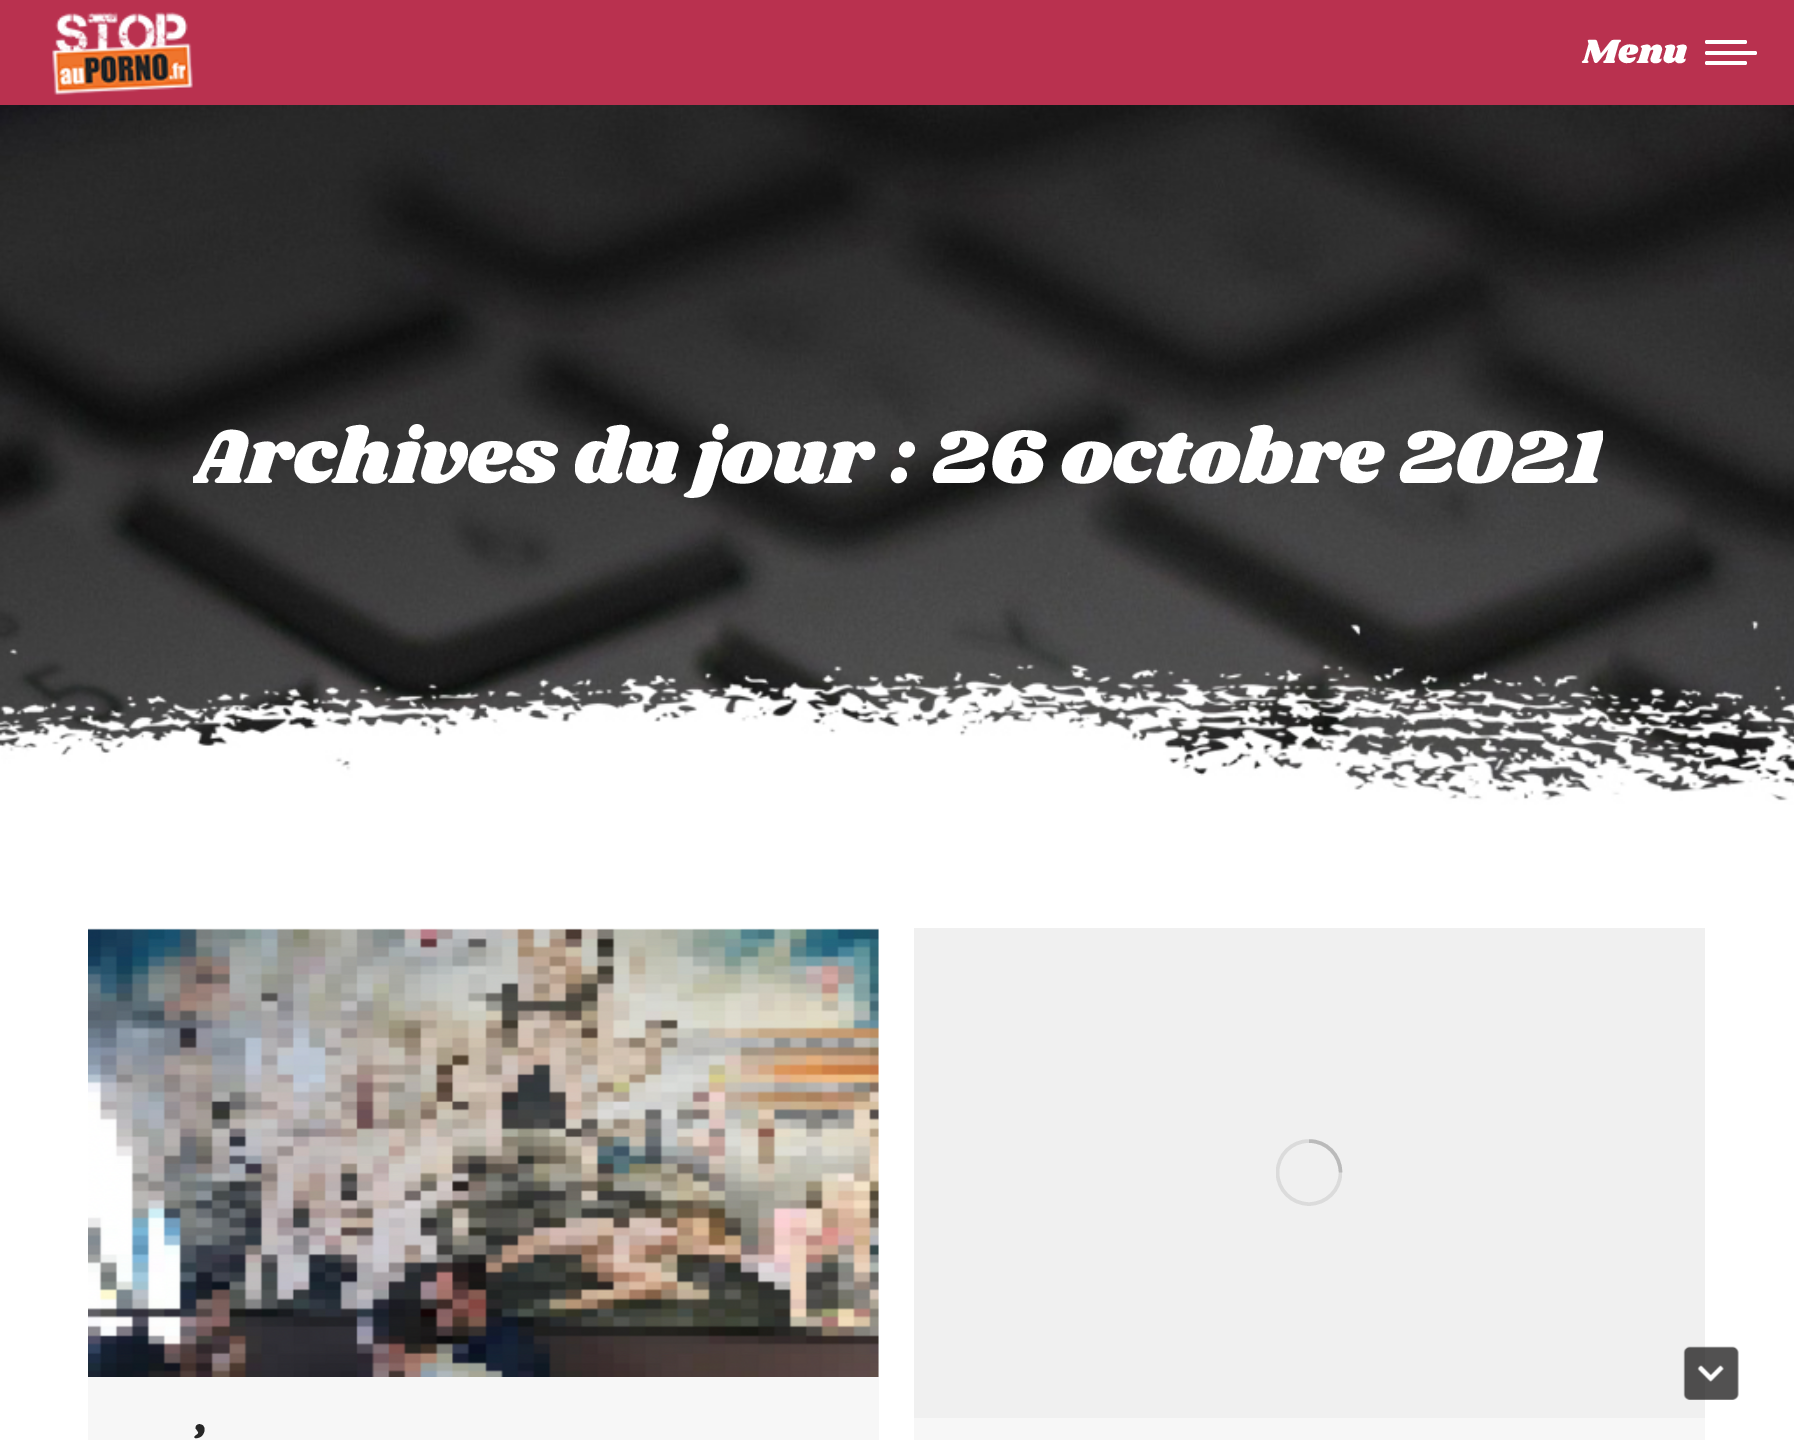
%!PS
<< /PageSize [1794 1440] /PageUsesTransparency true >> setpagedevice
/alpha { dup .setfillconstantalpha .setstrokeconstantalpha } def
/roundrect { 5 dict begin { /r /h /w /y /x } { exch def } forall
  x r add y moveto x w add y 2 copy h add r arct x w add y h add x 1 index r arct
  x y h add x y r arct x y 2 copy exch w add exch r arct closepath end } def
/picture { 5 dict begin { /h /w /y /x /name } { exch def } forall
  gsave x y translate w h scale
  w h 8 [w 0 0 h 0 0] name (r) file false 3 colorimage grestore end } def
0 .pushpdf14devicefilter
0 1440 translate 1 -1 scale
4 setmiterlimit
1 setgray
0 0 1794 1440 rectfill
0.725 0.192 0.31 setrgbcolor
0 0 1794 105 rectfill
(img1.rgb) 52 12 141 83 picture
/Shrikhand-Regular [35 0 0 -35 0 0] selectfont
1 setgray
1582 63 moveto (Menu) show
1705 40 42 4 2 roundrect fill
1705 51 52 4 2 roundrect fill
1705 61 42 4 2 roundrect fill
(img2.rgb) 0 105 1794 700 picture
gsave
193 411 1410 97 rectclip
/Shrikhand-Regular [78.75 0 0 -78.75 0 0] selectfont
192 483 moveto (Archives du jour : 26 octobre 2021) show
grestore
0.969 setgray
88 928 791 512 rectfill
(img3.rgb) 88 928 791 449 picture
/Shrikhand-Regular [46 0 0 -46 0 0] selectfont
0.149 setgray
189 1456 moveto (’) show
0.969 setgray
914 1418 791 22 rectfill
0.941 setgray
914 928 791 490 rectfill
gsave
1276 1139 66 67 rectclip
0.859 setgray
3.5 setlinewidth
newpath 1309 1172.5 31.5 0 360 arc closepath stroke
grestore
0.25 alpha
0.349 setgray
3.5 setlinewidth
newpath 1340.5 1172.5 moveto 1340.5 1155 1326.5 1141 1309 1141 curveto stroke
1 alpha
(img4.rgb) 1683 1346 56 54 picture
.poppdf14devicefilter showpage
